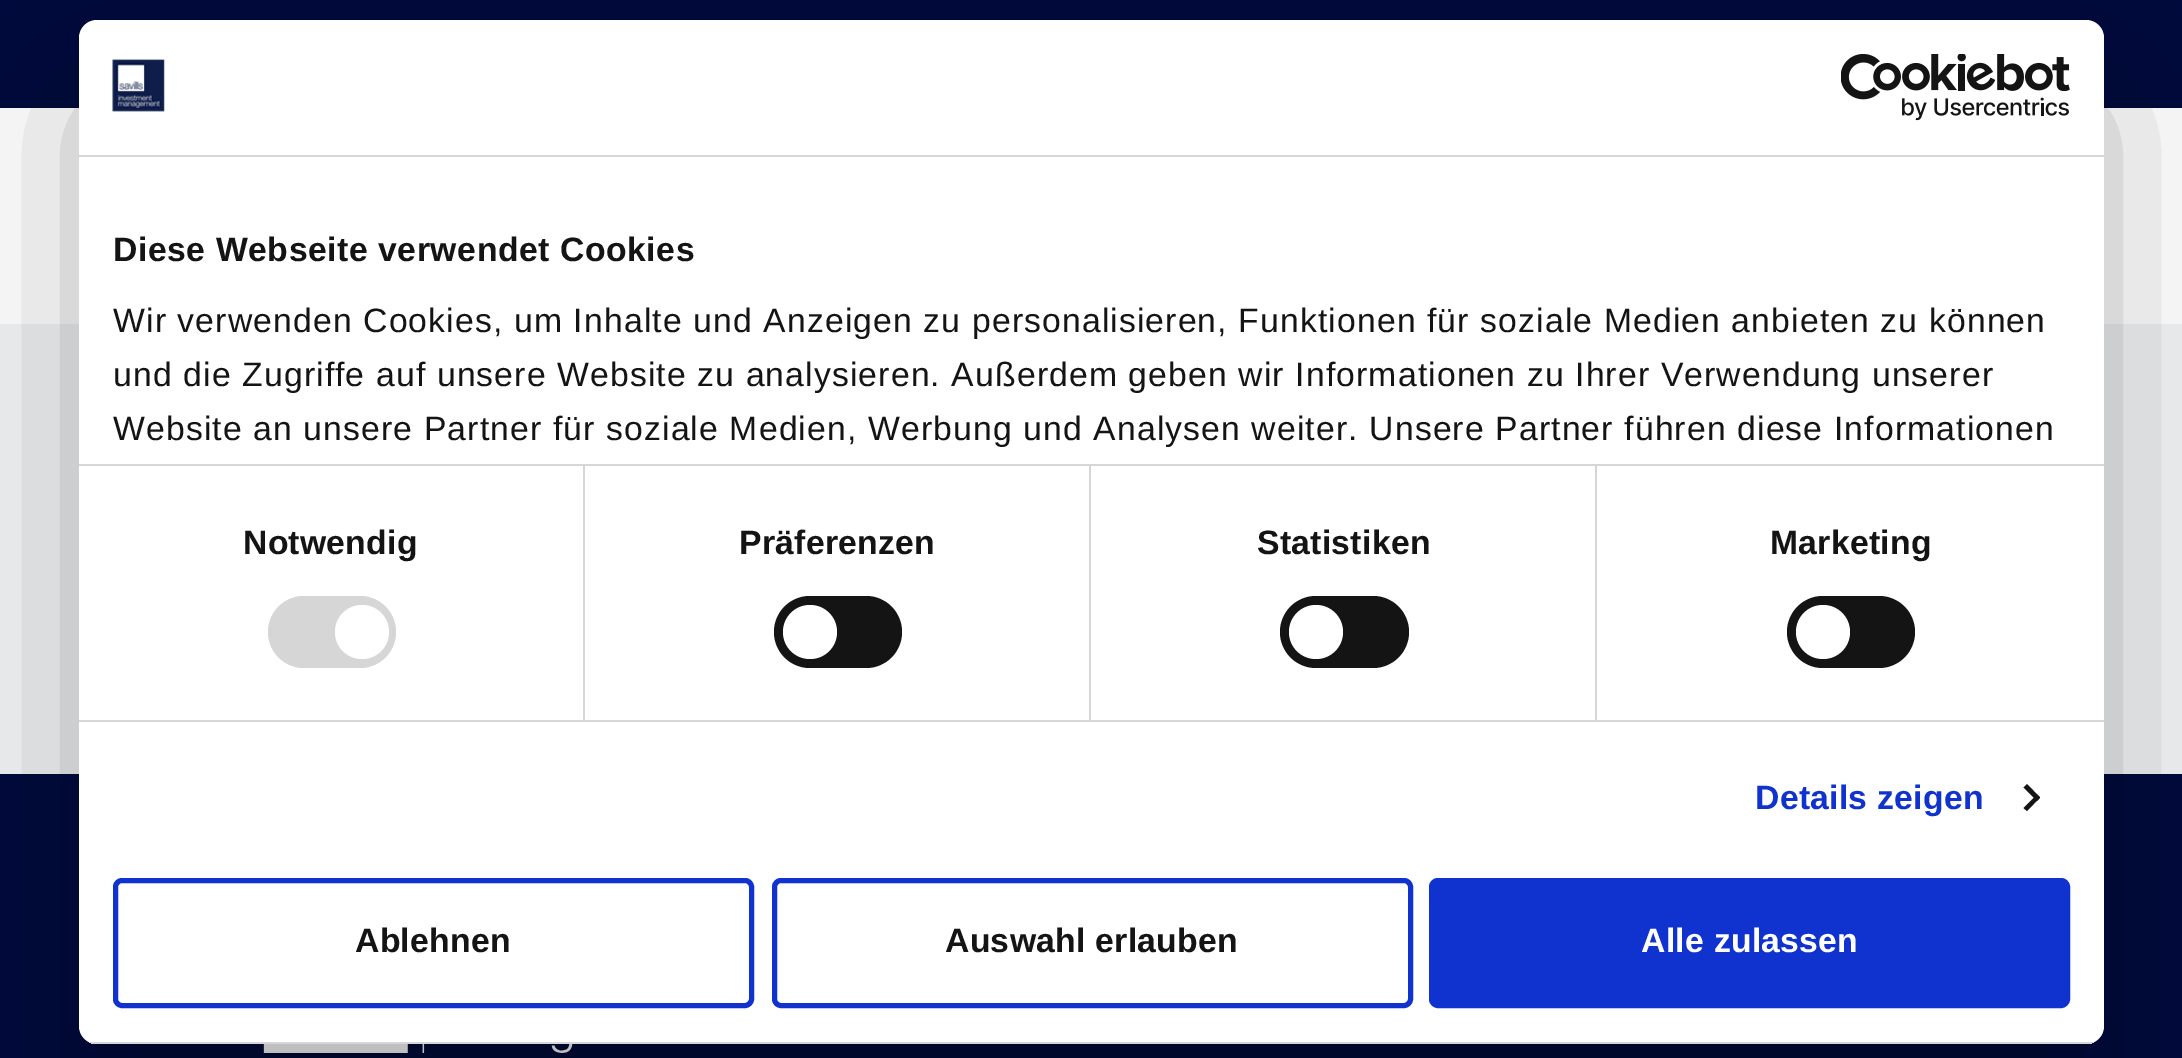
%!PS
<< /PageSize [2182 1058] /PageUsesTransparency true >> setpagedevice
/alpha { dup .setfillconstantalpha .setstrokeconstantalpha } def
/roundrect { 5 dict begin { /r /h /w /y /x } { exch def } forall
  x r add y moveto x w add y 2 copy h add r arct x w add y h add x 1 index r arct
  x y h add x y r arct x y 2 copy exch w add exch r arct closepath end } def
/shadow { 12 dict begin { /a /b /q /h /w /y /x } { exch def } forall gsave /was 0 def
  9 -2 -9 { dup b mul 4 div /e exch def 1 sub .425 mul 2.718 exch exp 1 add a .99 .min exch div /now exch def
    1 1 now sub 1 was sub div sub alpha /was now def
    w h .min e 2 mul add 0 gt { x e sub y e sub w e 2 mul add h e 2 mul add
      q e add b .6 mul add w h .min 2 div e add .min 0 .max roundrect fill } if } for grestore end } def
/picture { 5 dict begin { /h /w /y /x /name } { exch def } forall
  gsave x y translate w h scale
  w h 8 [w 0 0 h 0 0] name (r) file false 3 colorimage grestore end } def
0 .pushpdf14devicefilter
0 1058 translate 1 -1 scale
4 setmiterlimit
1 setgray
0 0 2182 1058 rectfill
0 0.039 0.235 setrgbcolor
0 0 2182 108 rectfill
0.949 0.953 0.961 setrgbcolor
0 324 2182 450 rectfill
0 0.039 0.235 setrgbcolor
0 774 2182 284 rectfill
(img3.rgb) 263 1044 310 9 picture
0 setgray
79 92 2025 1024 18 76.5 0.3 shadow
1 setgray
79 20 2025 1024 18 roundrect fill
0.839 setgray
79 155 2025 2 rectfill
(img1.rgb) 112 59 53 53 picture
(img2.rgb) 1841 54 229 67 picture
79 464 2025 2 rectfill
/LiberationSans-Bold [33.75 0 0 -33.75 0 0] selectfont
0.078 setgray
113 261 moveto 0.55 0 (Diese Webseite verwendet Cookies) ashow
/LiberationSans-Regular [33.75 0 0 -33.75 0 0] selectfont
113 332 moveto 1.12 0 (Wir verwenden Cookies, um Inhalte und Anzeigen zu personalisieren, Funktionen für soziale Medien anbieten zu können) ashow
113 386 moveto 1.12 0 (und die Zugriffe auf unsere Website zu analysieren. Außerdem geben wir Informationen zu Ihrer Verwendung unserer) ashow
113 440 moveto 1.12 0 (Website an unsere Partner für soziale Medien, Werbung und Analysen weiter. Unsere Partner führen diese Informationen) ashow
0.839 setgray
79 720 2025 2 rectfill
583 466 2 254 rectfill
/LiberationSans-Bold [33.75 0 0 -33.75 0 0] selectfont
0.078 setgray
243 554 moveto 0.25 0 (Notwendig) ashow
0.839 setgray
268 596 128 72 36 roundrect fill
1 setgray
newpath 362 632 27 0 360 arc closepath fill
0.839 setgray
1089 466 2 254 rectfill
0.078 setgray
739 554 moveto 0.25 0 (Präferenzen) ashow
774 596 128 72 36 roundrect fill
1 setgray
newpath 810 632 27 0 360 arc closepath fill
0.839 setgray
1595 466 2 254 rectfill
0.078 setgray
1257 554 moveto 0.25 0 (Statistiken) ashow
1280 596 129 72 36 roundrect fill
1 setgray
newpath 1316 632 27 0 360 arc closepath fill
0.078 setgray
1770 554 moveto 0.25 0 (Marketing) ashow
1787 596 128 72 36 roundrect fill
1 setgray
newpath 1823 632 27 0 360 arc closepath fill
0.063 0.196 0.812 setrgbcolor
1755 809 moveto 0.25 0 (Details zeigen) ashow
0.078 setgray
newpath 2027 784 moveto 2040 797.5 lineto 2037 801 lineto 2023.5 787.5 lineto closepath fill
newpath 2037 794.5 moveto 2040 797.5 lineto 2027 811 lineto 2023.5 808 lineto closepath fill
gsave
79 20 2025 1024 18 roundrect clip newpath
0.839 setgray
89 1042 2005 2 rectfill
grestore
0.063 0.196 0.812 setrgbcolor
5 setlinewidth
115.5 880.5 636 125 6.5 roundrect stroke
0.078 setgray
355 952 moveto 0.25 0 (Ablehnen) ashow
0.063 0.196 0.812 setrgbcolor
774.5 880.5 636 125 6.5 roundrect stroke
0.078 setgray
945 952 moveto 0.25 0 (Auswahl erlauben) ashow
0.063 0.196 0.812 setrgbcolor
1431.5 880.5 636 125 6.5 roundrect gsave fill grestore
stroke
1 setgray
1641 952 moveto 0.25 0 (Alle zulassen) ashow
.poppdf14devicefilter showpage
